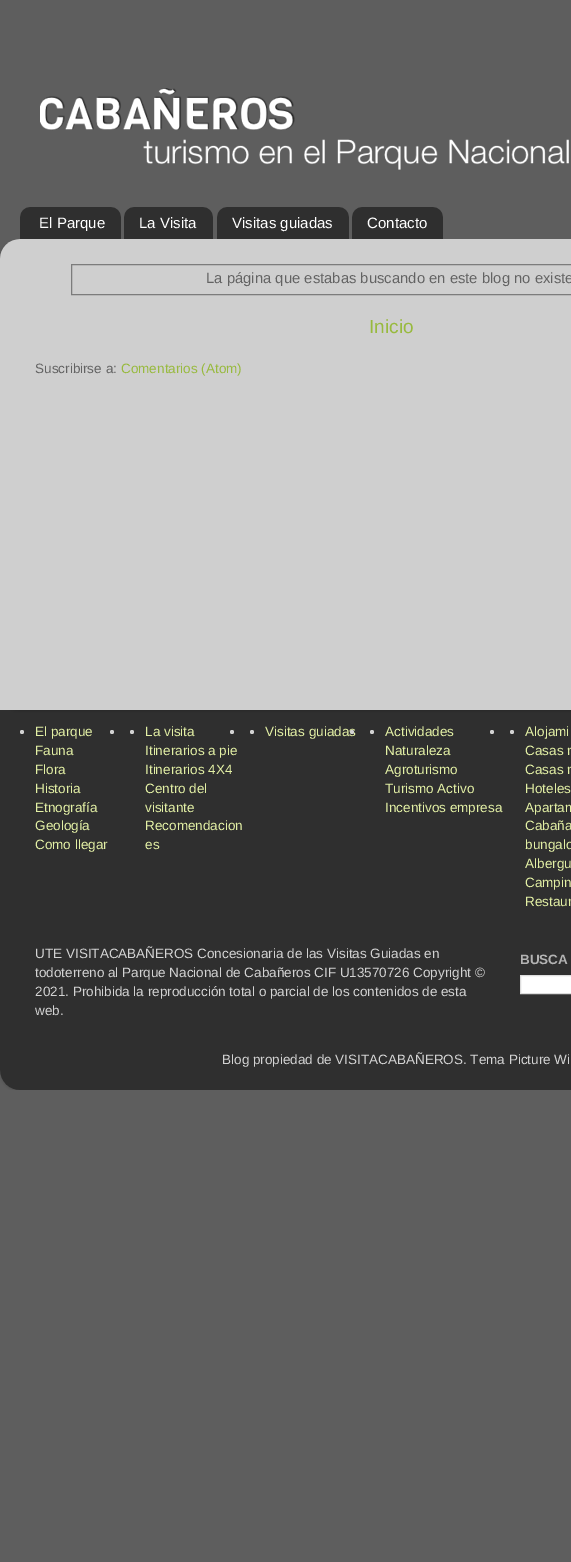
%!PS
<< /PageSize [571 1562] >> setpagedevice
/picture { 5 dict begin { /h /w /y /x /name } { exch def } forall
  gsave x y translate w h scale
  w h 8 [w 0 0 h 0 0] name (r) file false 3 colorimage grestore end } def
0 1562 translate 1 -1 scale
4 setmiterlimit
0.369 setgray
0 0 571 1562 rectfill
(img1.rgb) 40 88 529 82 picture
(img2.rgb) 20 207 101 32 picture
/LiberationSans-Regular [15 0 0 -15 0 0] selectfont
1 setgray
39 228 moveto (El Parque) show
(img3.rgb) 124 207 89 32 picture
139 228 moveto (La Visita) show
(img4.rgb) 217 207 132 32 picture
232 228 moveto (Visitas guiadas) show
(img5.rgb) 352 207 91 32 picture
367 228 moveto (Contacto) show
(img6.rgb) 0 239 571 471 picture
0.486 setgray
71.5 264.5 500 30 rectstroke
/LiberationSans-Regular [14.85 0 0 -14.85 0 0] selectfont
0.388 setgray
206 283 moveto (La página que estabas buscando en este blog no existe) show
/LiberationSans-Regular [19 0 0 -19 0 0] selectfont
0.596 0.729 0.243 setrgbcolor
369 333 moveto (Inicio) show
/LiberationSans-Regular [13.5 0 0 -13.5 0 0] selectfont
0.388 setgray
35 373 moveto (Suscribirse a:) show
0.596 0.729 0.243 setrgbcolor
121 373 moveto (Comentarios \(Atom\)) show
(img7.rgb) 0 710 571 380 picture
0.827 setgray
newpath 22 732 2 0 360 arc closepath fill
0.89 0.941 0.647 setrgbcolor
35 736 moveto (El parque) show
35 755 moveto (Fauna) show
35 774 moveto (Flora) show
35 793 moveto (Historia) show
35 812 moveto (Etnografía) show
35 830 moveto (Geología) show
35 849 moveto (Como llegar) show
0.827 setgray
newpath 112 732 2 0 360 arc closepath fill
newpath 132 732 2 0 360 arc closepath fill
0.89 0.941 0.647 setrgbcolor
145 736 moveto (La visita) show
145 755 moveto (Itinerarios a pie) show
145 774 moveto (Itinerarios 4X4) show
145 793 moveto (Centro del) show
145 812 moveto (visitante) show
145 830 moveto (Recomendacion) show
145 849 moveto (es) show
0.827 setgray
newpath 252 732 2 0 360 arc closepath fill
0.89 0.941 0.647 setrgbcolor
265 736 moveto (Visitas guiadas) show
0.827 setgray
newpath 372 732 2 0 360 arc closepath fill
0.89 0.941 0.647 setrgbcolor
385 736 moveto (Actividades) show
385 755 moveto (Naturaleza) show
385 774 moveto (Agroturismo) show
385 793 moveto (Turismo Activo) show
385 812 moveto (Incentivos empresa) show
0.827 setgray
newpath 512 732 2 0 360 arc closepath fill
0.89 0.941 0.647 setrgbcolor
525 736 moveto (Alojami) show
525 755 moveto (Casas r) show
525 774 moveto (Casas r) show
525 793 moveto (Hoteles) show
525 812 moveto (Apartam) show
525 830 moveto (Cabaña) show
525 849 moveto (bungalo) show
525 868 moveto (Albergu) show
525 887 moveto (Campin) show
525 906 moveto (Restaur) show
0.827 setgray
newpath 232 732 2 0 360 arc closepath fill
newpath 352 732 2 0 360 arc closepath fill
newpath 492 732 2 0 360 arc closepath fill
35 958 moveto (UTE VISITACABAÑEROS Concesionaria de las Visitas Guiadas en) show
35 977 moveto (todoterreno al Parque Nacional de Cabañeros CIF U13570726 Copyright ©) show
35 996 moveto (2021. Prohibida la reproducción total o parcial de los contenidos de esta) show
35 1015 moveto (web.) show
/LiberationSans-Bold [13.5 0 0 -13.5 0 0] selectfont
0.702 setgray
520 964 moveto (BUSCA) show
1 setgray
newpath 520.5 975.5 moveto 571.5 975.5 lineto 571.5 993.5 lineto 520.5 993.5 lineto closepath gsave fill grestore
0.867 setgray
stroke
/LiberationSans-Regular [13.5 0 0 -13.5 0 0] selectfont
0.827 setgray
222 1064 moveto (Blog propiedad de VISITACABAÑEROS. Tema Picture Wi) show
showpage
